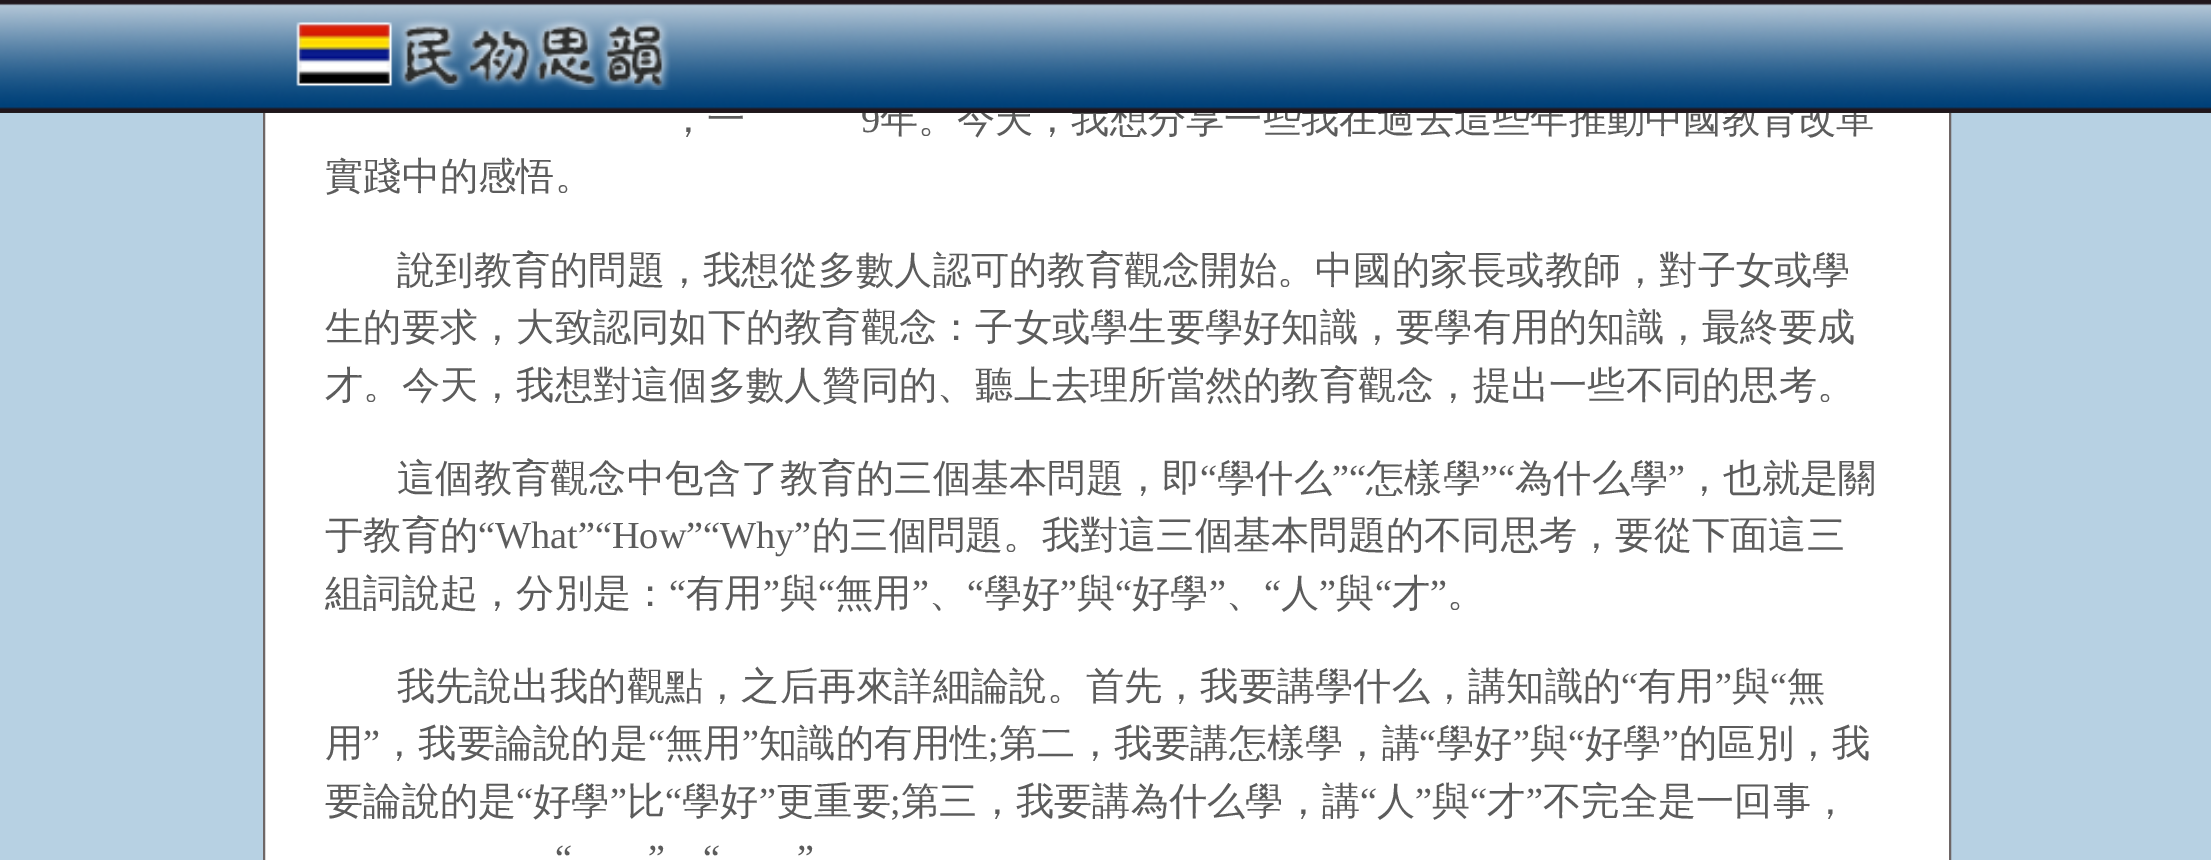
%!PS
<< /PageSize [2211 860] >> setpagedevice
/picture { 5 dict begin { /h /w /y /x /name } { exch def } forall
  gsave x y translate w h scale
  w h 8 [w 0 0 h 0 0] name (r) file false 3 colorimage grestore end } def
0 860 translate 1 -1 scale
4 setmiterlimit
0.718 0.82 0.89 setrgbcolor
0 0 2211 860 rectfill
1 setgray
265 113 1684 747 rectfill
0.431 0.4 0.4 setrgbcolor
2 setlinewidth
264 -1 1686 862 rectstroke
/LiberationSerif-Regular [38.25 0 0 -38.25 0 0] selectfont
0.361 setgray
861 132 moveto (9) show
/WenQuanYiZenHei-Medium [38.25 0 0 -38.25 0 0] selectfont
880 132 moveto (年。今天，我想分享一些我在過去這些年推動中國教育改革) show
0.133 setgray
0 112 2211 1 rectfill
(img1.rgb) 0 0 2211 113 picture
(img2.rgb) 296 18 375 72 picture
0.361 setgray
669 132 moveto (，一) show
325 189 moveto (實踐中的感悟。) show
397 283 moveto (說到教育的問題，我想從多數人認可的教育觀念開始。中國的家長或教師，對子女或學) show
325 340 moveto (生的要求，大致認同如下的教育觀念：子女或學生要學好知識，要學有用的知識，最終要成) show
325 398 moveto (才。今天，我想對這個多數人贊同的、聽上去理所當然的教育觀念，提出一些不同的思考。) show
397 491 moveto (這個教育觀念中包含了教育的三個基本問題，即) show
/LiberationSerif-Regular [38.25 0 0 -38.25 0 0] selectfont
1200 491 moveto (“) show
/WenQuanYiZenHei-Medium [38.25 0 0 -38.25 0 0] selectfont
1217 491 moveto (學什么) show
/LiberationSerif-Regular [38.25 0 0 -38.25 0 0] selectfont
1332 491 moveto (”“) show
/WenQuanYiZenHei-Medium [38.25 0 0 -38.25 0 0] selectfont
1366 491 moveto (怎樣學) show
/LiberationSerif-Regular [38.25 0 0 -38.25 0 0] selectfont
1481 491 moveto (”“) show
/WenQuanYiZenHei-Medium [38.25 0 0 -38.25 0 0] selectfont
1515 491 moveto (為什么學) show
/LiberationSerif-Regular [38.25 0 0 -38.25 0 0] selectfont
1668 491 moveto (”) show
/WenQuanYiZenHei-Medium [38.25 0 0 -38.25 0 0] selectfont
1685 491 moveto (，也就是關) show
325 548 moveto (于教育的) show
/LiberationSerif-Regular [38.25 0 0 -38.25 0 0] selectfont
478 548 moveto (“What”“How”“Why”) show
/WenQuanYiZenHei-Medium [38.25 0 0 -38.25 0 0] selectfont
812 548 moveto (的三個問題。我對這三個基本問題的不同思考，要從下面這三) show
325 606 moveto (組詞說起，分別是：) show
/LiberationSerif-Regular [38.25 0 0 -38.25 0 0] selectfont
669 606 moveto (“) show
/WenQuanYiZenHei-Medium [38.25 0 0 -38.25 0 0] selectfont
686 606 moveto (有用) show
/LiberationSerif-Regular [38.25 0 0 -38.25 0 0] selectfont
763 606 moveto (”) show
/WenQuanYiZenHei-Medium [38.25 0 0 -38.25 0 0] selectfont
780 606 moveto (與) show
/LiberationSerif-Regular [38.25 0 0 -38.25 0 0] selectfont
818 606 moveto (“) show
/WenQuanYiZenHei-Medium [38.25 0 0 -38.25 0 0] selectfont
835 606 moveto (無用) show
/LiberationSerif-Regular [38.25 0 0 -38.25 0 0] selectfont
912 606 moveto (”) show
967 606 moveto (“) show
/WenQuanYiZenHei-Medium [38.25 0 0 -38.25 0 0] selectfont
984 606 moveto (學好) show
/LiberationSerif-Regular [38.25 0 0 -38.25 0 0] selectfont
1060 606 moveto (”) show
/WenQuanYiZenHei-Medium [38.25 0 0 -38.25 0 0] selectfont
1077 606 moveto (與) show
/LiberationSerif-Regular [38.25 0 0 -38.25 0 0] selectfont
1115 606 moveto (“) show
/WenQuanYiZenHei-Medium [38.25 0 0 -38.25 0 0] selectfont
1132 606 moveto (好學) show
/LiberationSerif-Regular [38.25 0 0 -38.25 0 0] selectfont
1209 606 moveto (”) show
1264 606 moveto (“) show
/WenQuanYiZenHei-Medium [38.25 0 0 -38.25 0 0] selectfont
1281 606 moveto (人) show
/LiberationSerif-Regular [38.25 0 0 -38.25 0 0] selectfont
1319 606 moveto (”) show
/WenQuanYiZenHei-Medium [38.25 0 0 -38.25 0 0] selectfont
1336 606 moveto (與) show
/LiberationSerif-Regular [38.25 0 0 -38.25 0 0] selectfont
1375 606 moveto (“) show
/WenQuanYiZenHei-Medium [38.25 0 0 -38.25 0 0] selectfont
1392 606 moveto (才) show
/LiberationSerif-Regular [38.25 0 0 -38.25 0 0] selectfont
1430 606 moveto (”) show
/WenQuanYiZenHei-Medium [38.25 0 0 -38.25 0 0] selectfont
929 606 moveto (、) show
1226 606 moveto (、) show
1447 606 moveto (。) show
397 699 moveto (我先說出我的觀點，之后再來詳細論說。首先，我要講學什么，講知識的) show
/LiberationSerif-Regular [38.25 0 0 -38.25 0 0] selectfont
1621 699 moveto (“) show
/WenQuanYiZenHei-Medium [38.25 0 0 -38.25 0 0] selectfont
1638 699 moveto (有用) show
/LiberationSerif-Regular [38.25 0 0 -38.25 0 0] selectfont
1715 699 moveto (”) show
/WenQuanYiZenHei-Medium [38.25 0 0 -38.25 0 0] selectfont
1732 699 moveto (與) show
/LiberationSerif-Regular [38.25 0 0 -38.25 0 0] selectfont
1770 699 moveto (“) show
/WenQuanYiZenHei-Medium [38.25 0 0 -38.25 0 0] selectfont
1787 699 moveto (無) show
325 756 moveto (用) show
/LiberationSerif-Regular [38.25 0 0 -38.25 0 0] selectfont
363 756 moveto (”) show
/WenQuanYiZenHei-Medium [38.25 0 0 -38.25 0 0] selectfont
380 756 moveto (，我要論說的是) show
/LiberationSerif-Regular [38.25 0 0 -38.25 0 0] selectfont
648 756 moveto (“) show
/WenQuanYiZenHei-Medium [38.25 0 0 -38.25 0 0] selectfont
665 756 moveto (無用) show
/LiberationSerif-Regular [38.25 0 0 -38.25 0 0] selectfont
742 756 moveto (”) show
/WenQuanYiZenHei-Medium [38.25 0 0 -38.25 0 0] selectfont
759 756 moveto (知識的有用性) show
999 756 moveto (第二，我要講怎樣學，講) show
/LiberationSerif-Regular [38.25 0 0 -38.25 0 0] selectfont
1419 756 moveto (“) show
/WenQuanYiZenHei-Medium [38.25 0 0 -38.25 0 0] selectfont
1436 756 moveto (學好) show
/LiberationSerif-Regular [38.25 0 0 -38.25 0 0] selectfont
1513 756 moveto (”) show
/WenQuanYiZenHei-Medium [38.25 0 0 -38.25 0 0] selectfont
1530 756 moveto (與) show
/LiberationSerif-Regular [38.25 0 0 -38.25 0 0] selectfont
1568 756 moveto (“) show
/WenQuanYiZenHei-Medium [38.25 0 0 -38.25 0 0] selectfont
1585 756 moveto (好學) show
/LiberationSerif-Regular [38.25 0 0 -38.25 0 0] selectfont
1662 756 moveto (”) show
/WenQuanYiZenHei-Medium [38.25 0 0 -38.25 0 0] selectfont
1679 756 moveto (的區別，我) show
/LiberationSerif-Regular [38.25 0 0 -38.25 0 0] selectfont
988 756 moveto (;) show
/WenQuanYiZenHei-Medium [38.25 0 0 -38.25 0 0] selectfont
325 814 moveto (要論說的是) show
/LiberationSerif-Regular [38.25 0 0 -38.25 0 0] selectfont
516 814 moveto (“) show
/WenQuanYiZenHei-Medium [38.25 0 0 -38.25 0 0] selectfont
533 814 moveto (好學) show
/LiberationSerif-Regular [38.25 0 0 -38.25 0 0] selectfont
610 814 moveto (”) show
/WenQuanYiZenHei-Medium [38.25 0 0 -38.25 0 0] selectfont
627 814 moveto (比) show
/LiberationSerif-Regular [38.25 0 0 -38.25 0 0] selectfont
665 814 moveto (“) show
/WenQuanYiZenHei-Medium [38.25 0 0 -38.25 0 0] selectfont
682 814 moveto (學好) show
/LiberationSerif-Regular [38.25 0 0 -38.25 0 0] selectfont
759 814 moveto (”) show
/WenQuanYiZenHei-Medium [38.25 0 0 -38.25 0 0] selectfont
776 814 moveto (更重要) show
901 814 moveto (第三，我要講為什么學，講) show
/LiberationSerif-Regular [38.25 0 0 -38.25 0 0] selectfont
1360 814 moveto (“) show
/WenQuanYiZenHei-Medium [38.25 0 0 -38.25 0 0] selectfont
1377 814 moveto (人) show
/LiberationSerif-Regular [38.25 0 0 -38.25 0 0] selectfont
1415 814 moveto (”) show
/WenQuanYiZenHei-Medium [38.25 0 0 -38.25 0 0] selectfont
1432 814 moveto (與) show
/LiberationSerif-Regular [38.25 0 0 -38.25 0 0] selectfont
1470 814 moveto (“) show
/WenQuanYiZenHei-Medium [38.25 0 0 -38.25 0 0] selectfont
1487 814 moveto (才) show
/LiberationSerif-Regular [38.25 0 0 -38.25 0 0] selectfont
1526 814 moveto (”) show
/WenQuanYiZenHei-Medium [38.25 0 0 -38.25 0 0] selectfont
1543 814 moveto (不完全是一回事，) show
/LiberationSerif-Regular [38.25 0 0 -38.25 0 0] selectfont
890 814 moveto (;) show
555 871 moveto (“) show
648 871 moveto (”) show
703 871 moveto (“) show
797 871 moveto (”) show
showpage
